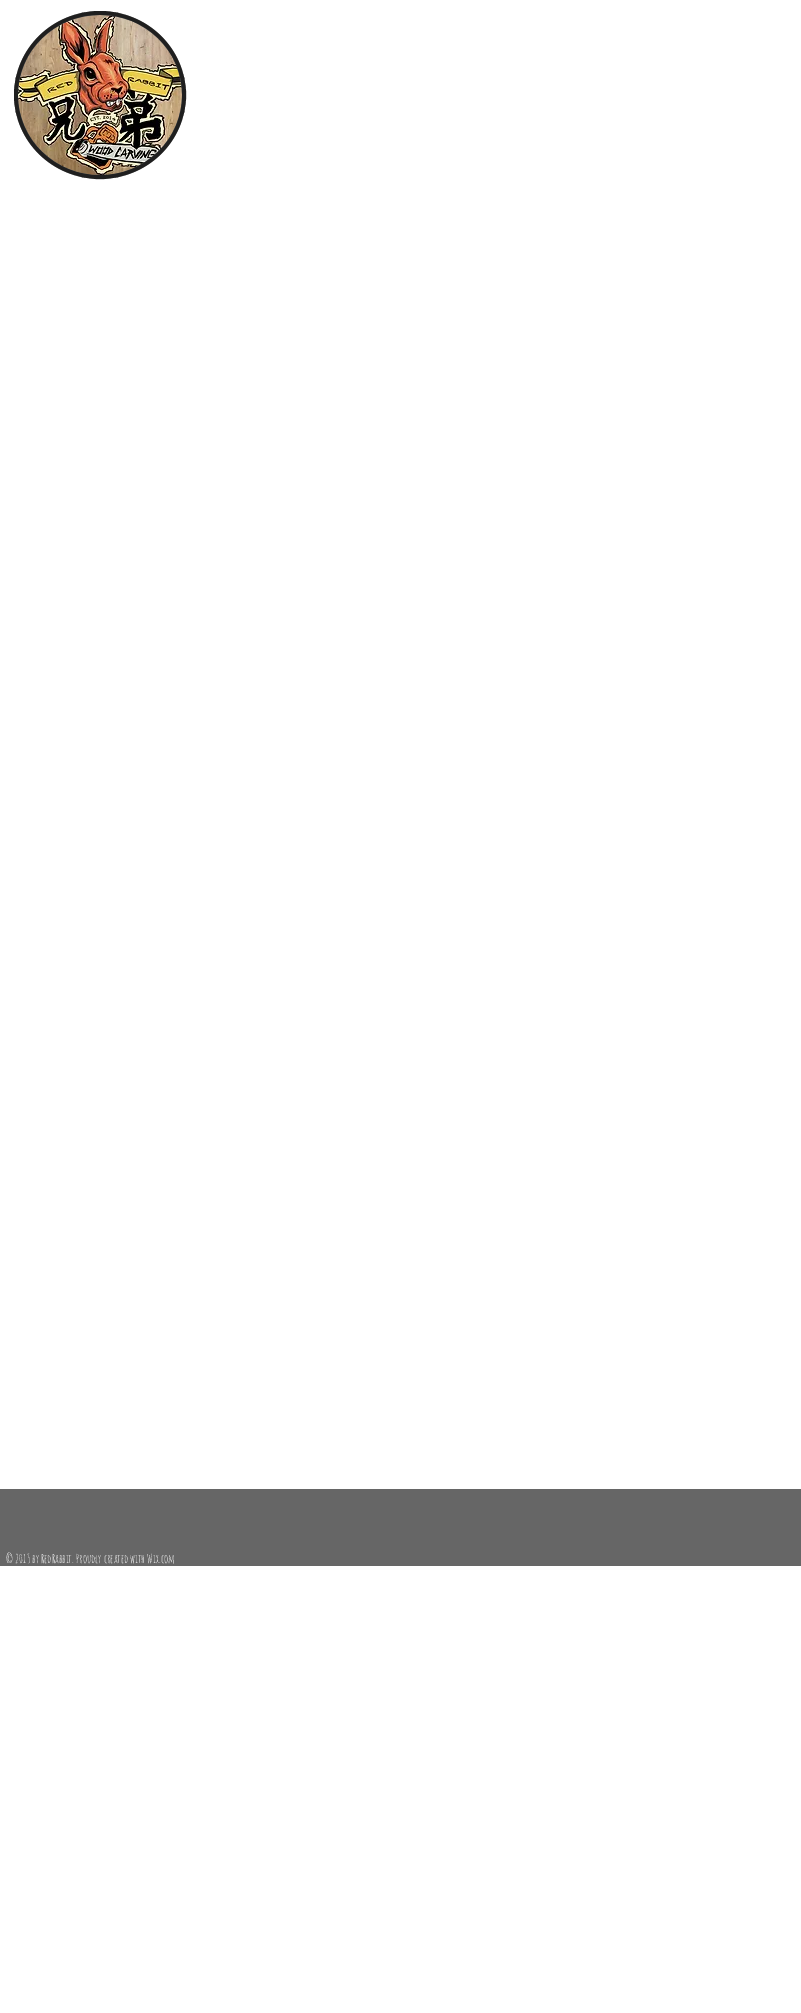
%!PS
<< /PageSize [801 2013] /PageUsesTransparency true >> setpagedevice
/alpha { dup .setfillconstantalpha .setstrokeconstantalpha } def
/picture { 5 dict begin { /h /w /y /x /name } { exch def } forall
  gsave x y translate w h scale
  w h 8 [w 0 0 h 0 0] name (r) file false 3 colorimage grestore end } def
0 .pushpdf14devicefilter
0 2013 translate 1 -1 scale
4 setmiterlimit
1 setgray
0 0 801 2013 rectfill
0.349 setgray
newpath 100 11 moveto 147.5 11 186 48.5 186 95 curveto 186 141.5 147.5 179 100 179 curveto 52.5 179 14 141.5 14 95 curveto 14 48.5 52.5 11 100 11 curveto closepath fill
0.65 alpha
0 setgray
4 setlinewidth
newpath 100 13 moveto 146.5 13 184 49.5 184 95 curveto 184 140.5 146.5 177 100 177 curveto 53.5 177 16 140.5 16 95 curveto 16 49.5 53.5 13 100 13 curveto closepath stroke
1 alpha
(img1.rgb) 18 15 164 160 picture
0.4 setgray
0 1489 801 77 rectfill
/AmaticSC-Regular [12 0 0 -12 0 0] selectfont
1 setgray
6 1563 moveto (© 2015 by RedRabbit. Proudly created with Wix.com) show
.poppdf14devicefilter showpage
